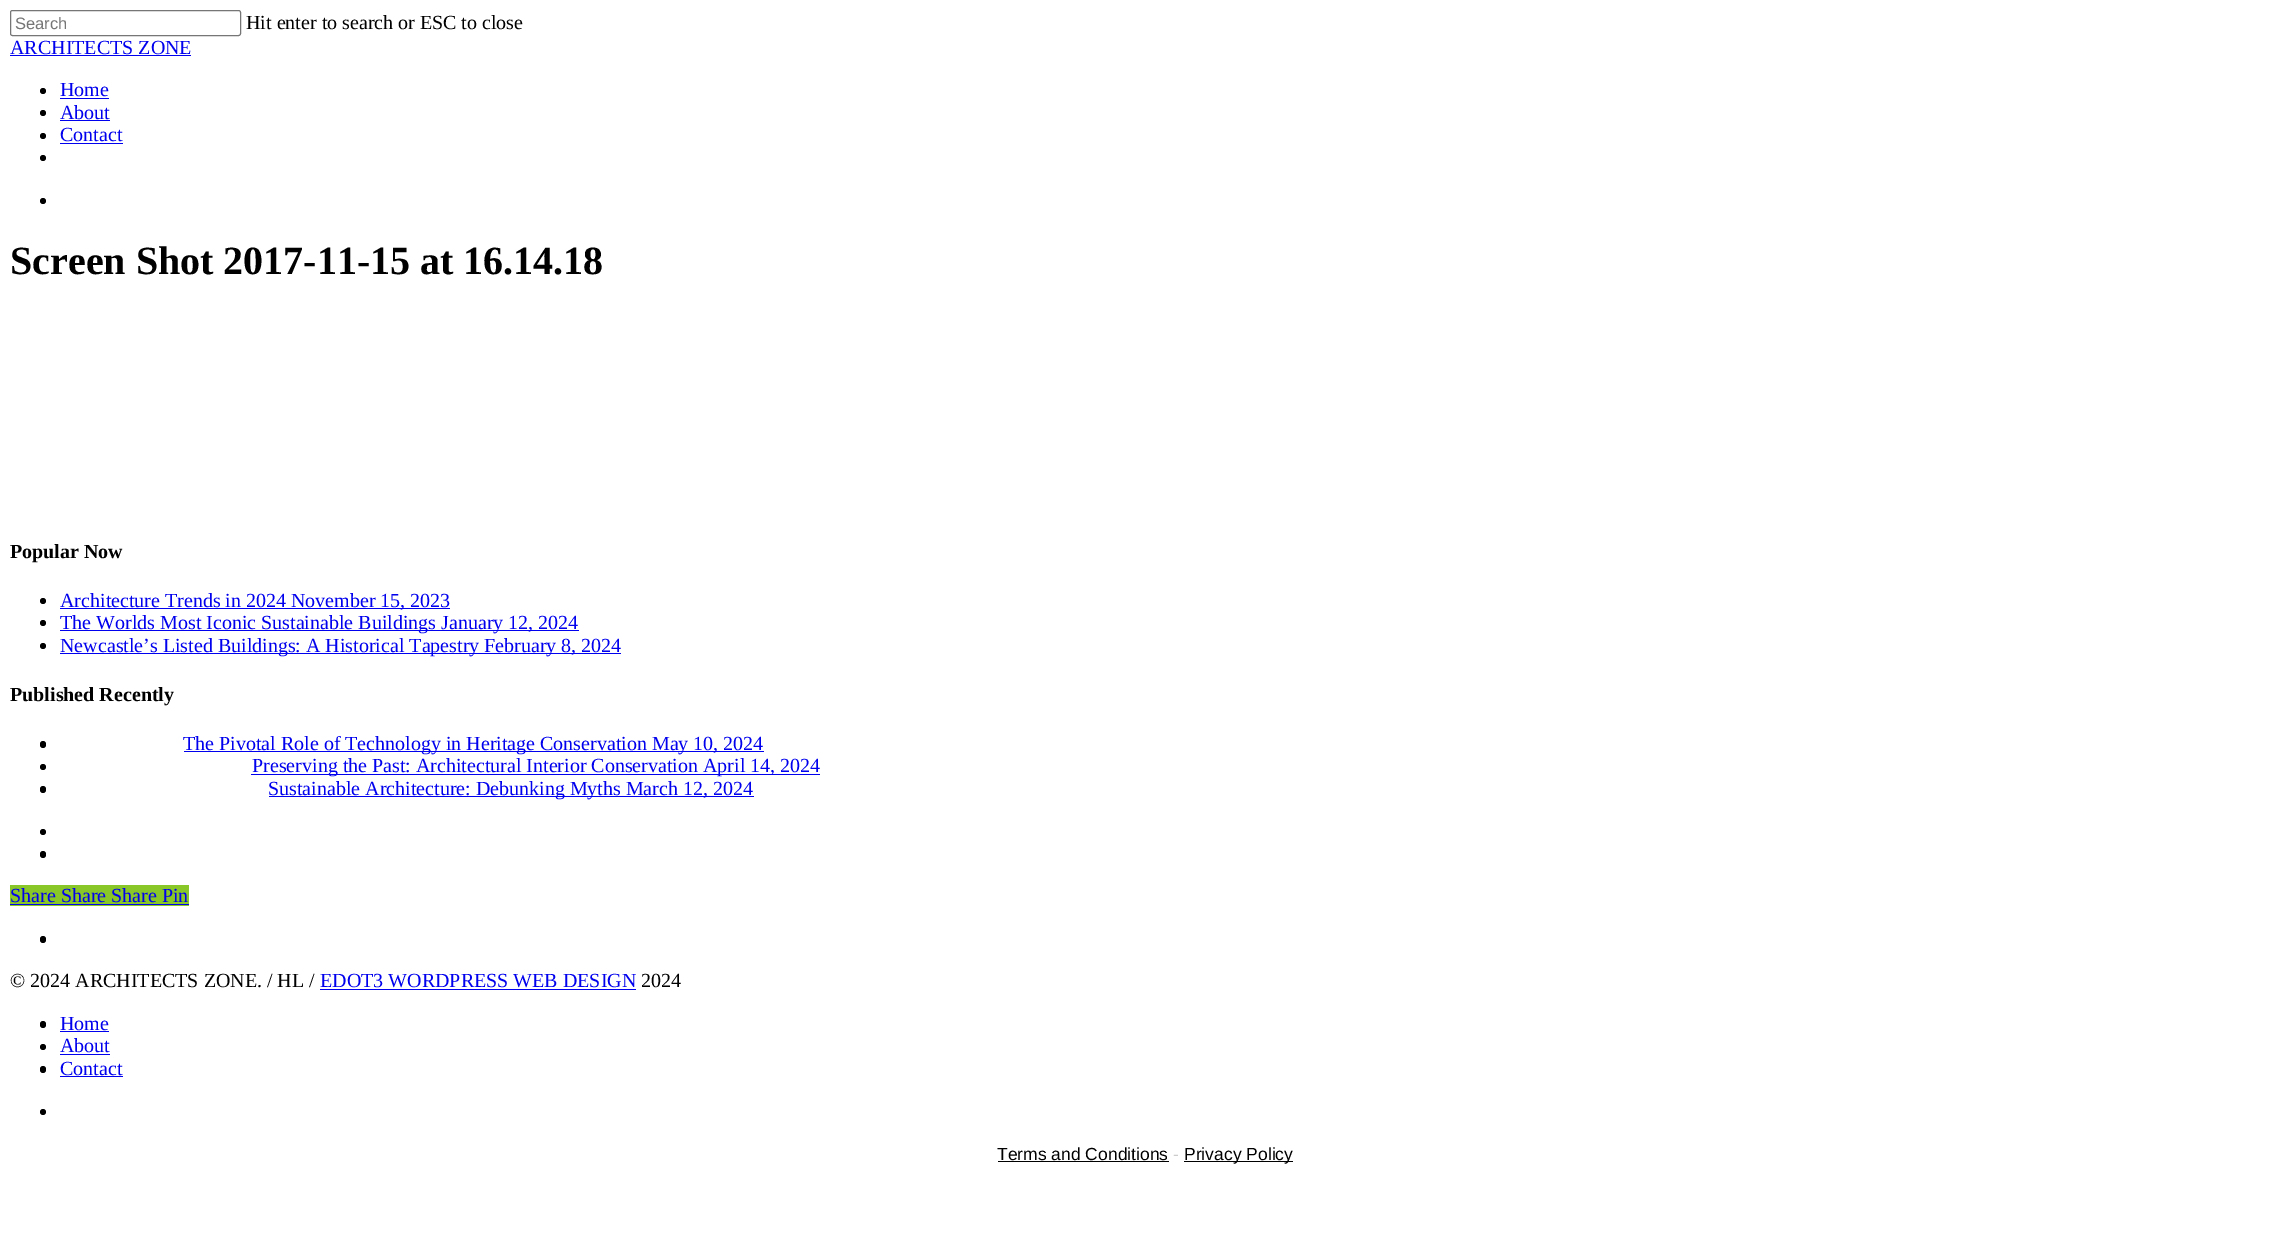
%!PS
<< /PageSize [2289 1252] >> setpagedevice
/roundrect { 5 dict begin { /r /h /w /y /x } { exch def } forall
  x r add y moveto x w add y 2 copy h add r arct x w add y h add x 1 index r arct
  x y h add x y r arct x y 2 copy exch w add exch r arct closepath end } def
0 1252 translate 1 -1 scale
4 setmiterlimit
1 setgray
0 0 2289 1252 rectfill
0.463 setgray
10.5 10.5 230 25 2 roundrect stroke
/LiberationSans-Regular [16.5 0 0 -16.5 0 0] selectfont
0.459 setgray
15 29 moveto (Search) show
/LiberationSerif-Regular [20 0 0 -20 0 0] selectfont
0 setgray
246 29 moveto (Hit enter to search or ESC to close) show
0 0 0.933 setrgbcolor
10 54 moveto (ARCHITECTS ZONE) show
10 55 181 1 rectfill
0 setgray
newpath 43 91 3 0 360 arc closepath fill
0 0 0.933 setrgbcolor
60 96 moveto (Home) show
60 98 49 1 rectfill
0 setgray
newpath 43 113 3 0 360 arc closepath fill
0 0 0.933 setrgbcolor
60 119 moveto (About) show
60 120 50 1 rectfill
0 setgray
newpath 43 136 3 0 360 arc closepath fill
0 0 0.933 setrgbcolor
60 141 moveto (Contact) show
60 143 63 1 rectfill
0 setgray
newpath 43 158 3 0 360 arc closepath fill
newpath 43 201 3 0 360 arc closepath fill
/LiberationSerif-Bold [40 0 0 -40 0 0] selectfont
10 274 moveto (Screen Shot 2017-11-15 at 16.14.18) show
/LiberationSerif-Bold [20 0 0 -20 0 0] selectfont
10 558 moveto (Popular Now) show
newpath 43 601 3 0 360 arc closepath fill
0 0 0.933 setrgbcolor
60 608 390 1 rectfill
/LiberationSerif-Regular [20 0 0 -20 0 0] selectfont
60 607 moveto (Architecture Trends in 2024 November 15, 2023) show
0 setgray
newpath 43 623 3 0 360 arc closepath fill
0 0 0.933 setrgbcolor
60 630 519 1 rectfill
60 629 moveto (The Worlds Most Iconic Sustainable Buildings January 12, 2024) show
0 setgray
newpath 43 646 3 0 360 arc closepath fill
0 0 0.933 setrgbcolor
60 653 419 1 rectfill
60 652 moveto (Newcastle’s Listed Buildings: A Historical Tapestry) show
479 653 142 1 rectfill
484 652 moveto (February 8, 2024) show
/LiberationSerif-Bold [20 0 0 -20 0 0] selectfont
0 setgray
10 701 moveto (Published Recently) show
40 741 6 7 3 roundrect fill
0 0 0.933 setrgbcolor
184 751 580 1 rectfill
/LiberationSerif-Regular [20 0 0 -20 0 0] selectfont
183 750 moveto (The Pivotal Role of Technology in Heritage Conservation May 10, 2024) show
0 setgray
newpath 43 767 3 0 360 arc closepath fill
0 0 0.933 setrgbcolor
251 774 569 1 rectfill
252 772 moveto (Preserving the Past: Architectural Interior Conservation April 14, 2024) show
0 setgray
40 786 6 7 3 roundrect fill
0 0 0.933 setrgbcolor
269 796 485 1 rectfill
268 795 moveto (Sustainable Architecture: Debunking Myths March 12, 2024) show
0 setgray
newpath 43 832 3 0 360 arc closepath fill
40 851 6 7 3 roundrect fill
0.537 0.776 0.153 setrgbcolor
10 885 179 21 rectfill
0 0 0.933 setrgbcolor
10 902 moveto (Share Share Share Pin) show
10 904 179 1 rectfill
0 setgray
40 936 6 7 3 roundrect fill
10 987 moveto (© 2024 ARCHITECTS ZONE. / HL /) show
0 0 0.933 setrgbcolor
320 987 moveto (EDOT3 WORDPRESS WEB DESIGN) show
320 989 316 1 rectfill
0 setgray
641 987 moveto (2024) show
40 1021 6 7 3 roundrect fill
0 0 0.933 setrgbcolor
60 1030 moveto (Home) show
60 1031 49 1 rectfill
0 setgray
newpath 43 1047 3 0 360 arc closepath fill
0 0 0.933 setrgbcolor
60 1052 moveto (About) show
60 1054 50 1 rectfill
0 setgray
40 1066 6 7 3 roundrect fill
0 0 0.933 setrgbcolor
60 1075 moveto (Contact) show
60 1076 63 1 rectfill
0 setgray
newpath 43 1112 3 0 360 arc closepath fill
/LiberationSans-Regular [17.5 0 0 -17.5 0 0] selectfont
997 1160 moveto (Terms and Conditions) show
998 1161 171 1 rectfill
0.8 setgray
1173 1160 moveto (-) show
0 setgray
1184 1161 109 1 rectfill
1184 1160 moveto (Privacy Policy) show
showpage
